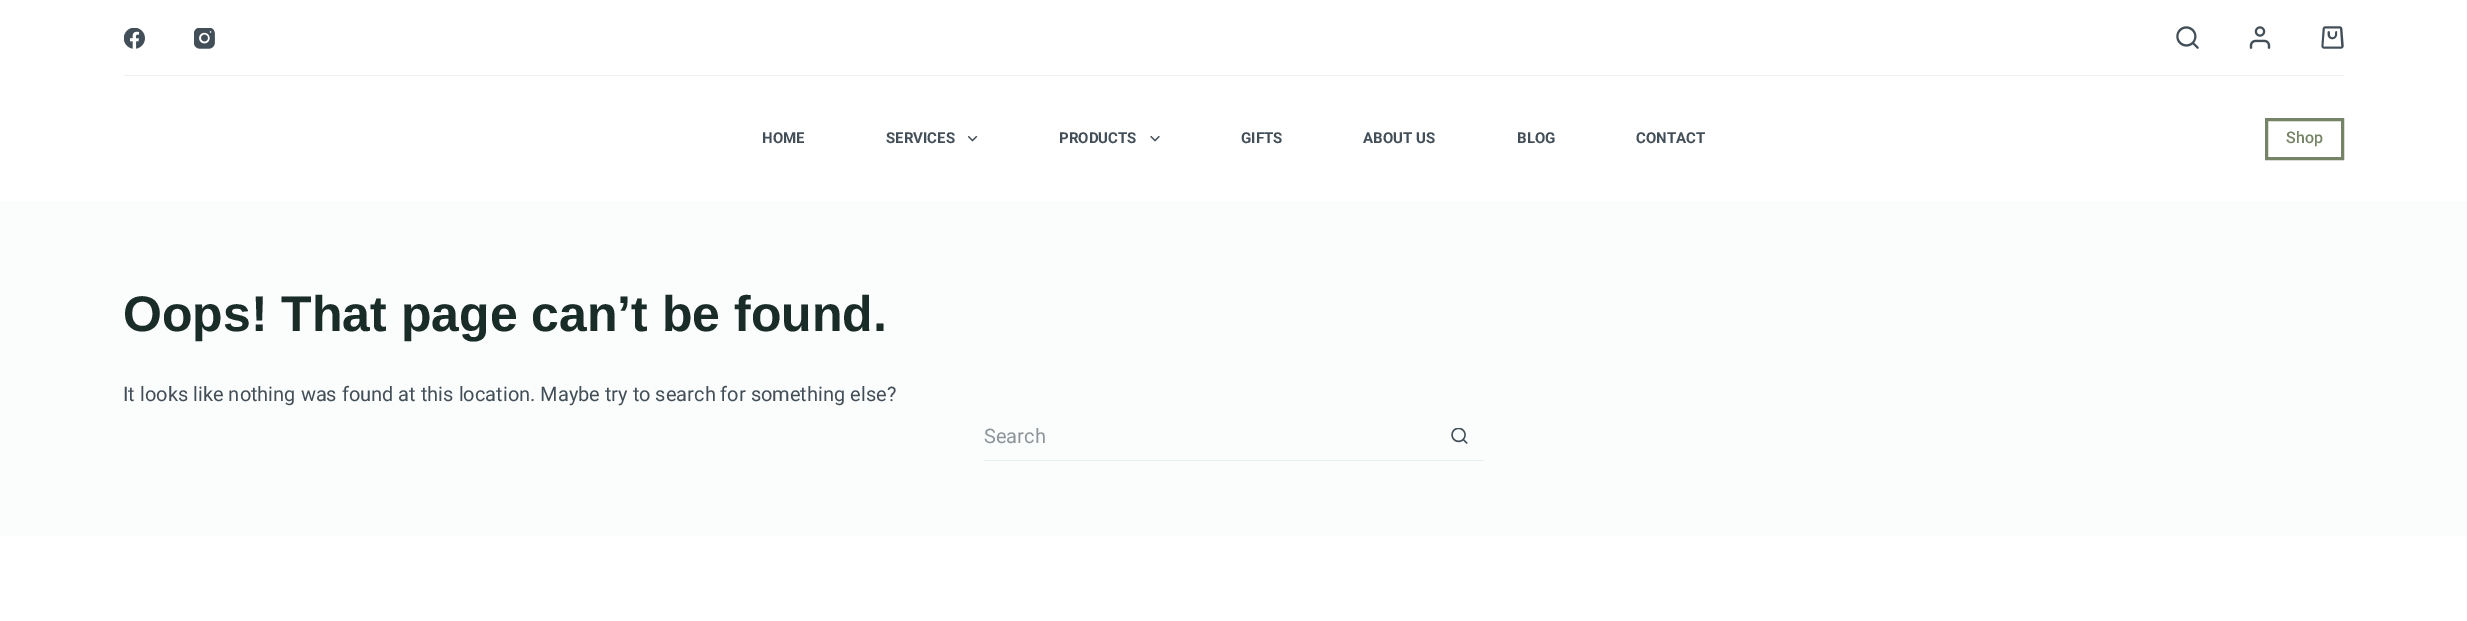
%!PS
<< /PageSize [2467 621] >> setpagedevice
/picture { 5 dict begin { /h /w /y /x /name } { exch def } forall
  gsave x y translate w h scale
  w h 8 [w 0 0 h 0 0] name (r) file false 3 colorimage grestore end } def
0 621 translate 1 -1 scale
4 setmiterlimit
0.984 0.988 0.988 setrgbcolor
0 0 2467 621 rectfill
1 setgray
0 0 2467 201 rectfill
(img1.rgb) 124 28 21 21 picture
(img2.rgb) 194 28 21 21 picture
(img3.rgb) 2176 26 23 23 picture
(img4.rgb) 2249 26 22 23 picture
(img5.rgb) 2321 26 23 23 picture
0.941 0.945 0.953 setrgbcolor
124 75 2220 1 rectfill
/Roboto-Bold [15 0 0 -15 0 0] selectfont
0.263 0.31 0.345 setrgbcolor
762 143 moveto (HOME) show
886 143 moveto (SERVICES) show
(img6.rgb) 968 136 10 6 picture
1059 143 moveto (PRODUCTS) show
(img7.rgb) 1150 136 10 6 picture
1241 143 moveto (GIFTS) show
1363 143 moveto (ABOUT US) show
1517 143 moveto (BLOG) show
1636 143 moveto (CONTACT) show
0.459 0.518 0.404 setrgbcolor
3 setlinewidth
2266.5 119.5 76 39 rectstroke
/Roboto-Medium [16 0 0 -16 0 0] selectfont
2286 143 moveto (Shop) show
/LiberationSans-Bold [50 0 0 -50 0 0] selectfont
0.098 0.173 0.153 setrgbcolor
123 331 moveto (Oops! That page can’t be found.) show
/Roboto-Regular [20 0 0 -20 0 0] selectfont
0.263 0.31 0.345 setrgbcolor
123 401 moveto (It looks like nothing was found at this location. Maybe try to search for something else?) show
0.902 0.941 0.933 setrgbcolor
984 460 500 1 rectfill
0.553 0.58 0.604 setrgbcolor
984 443 moveto (Search) show
(img8.rgb) 1451 428 17 16 picture
1 setgray
0 536 2467 85 rectfill
showpage
